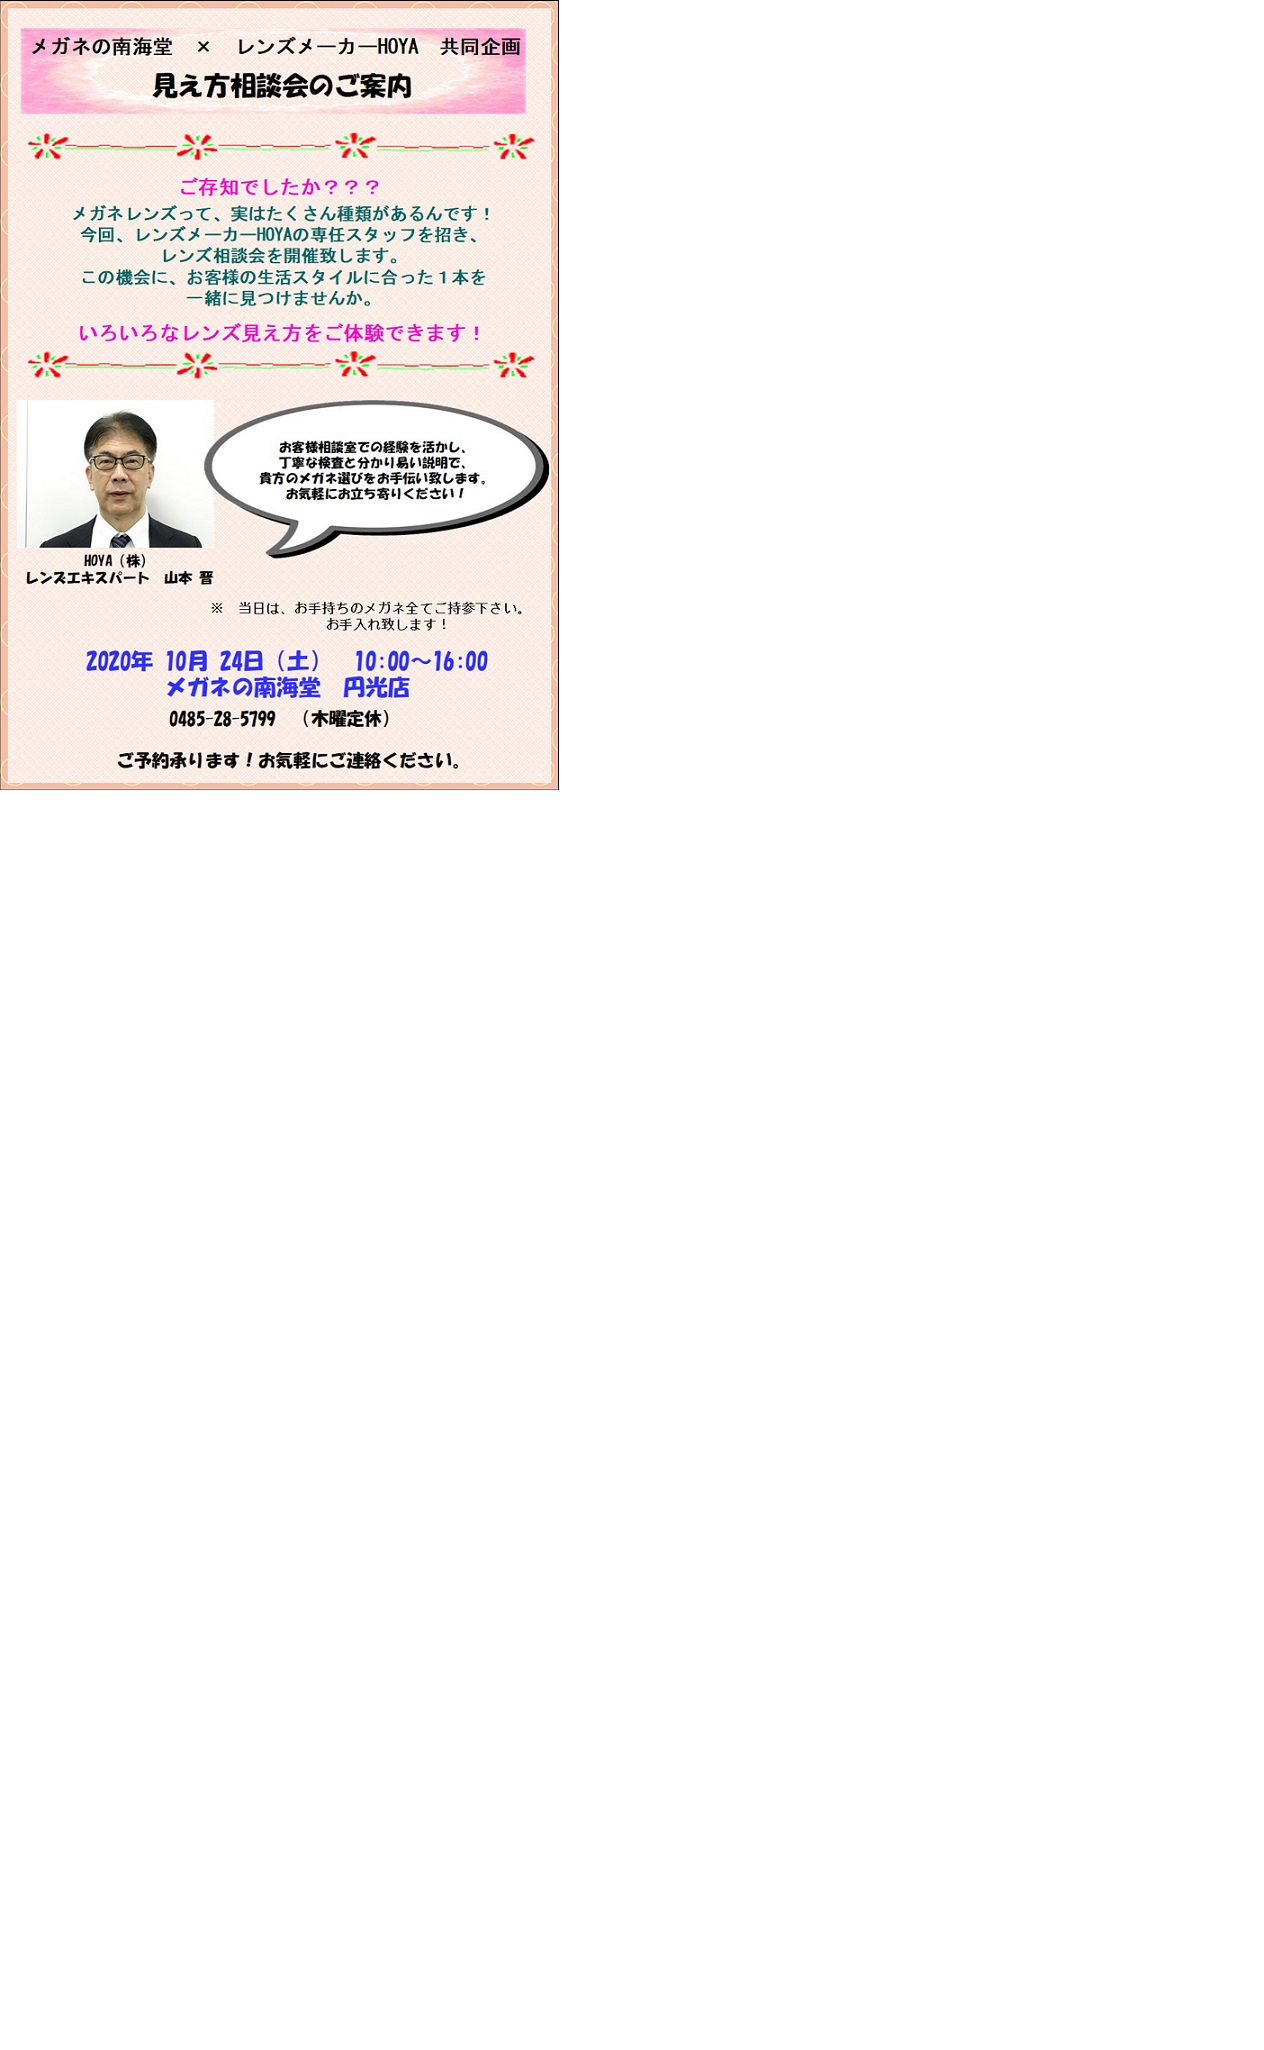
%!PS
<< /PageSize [1264 2050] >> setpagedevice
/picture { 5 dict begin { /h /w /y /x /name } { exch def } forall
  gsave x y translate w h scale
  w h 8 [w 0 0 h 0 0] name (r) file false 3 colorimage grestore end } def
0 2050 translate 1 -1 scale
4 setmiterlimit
1 setgray
0 0 1264 2050 rectfill
(img1.rgb) 0 0 559 790 picture
showpage
